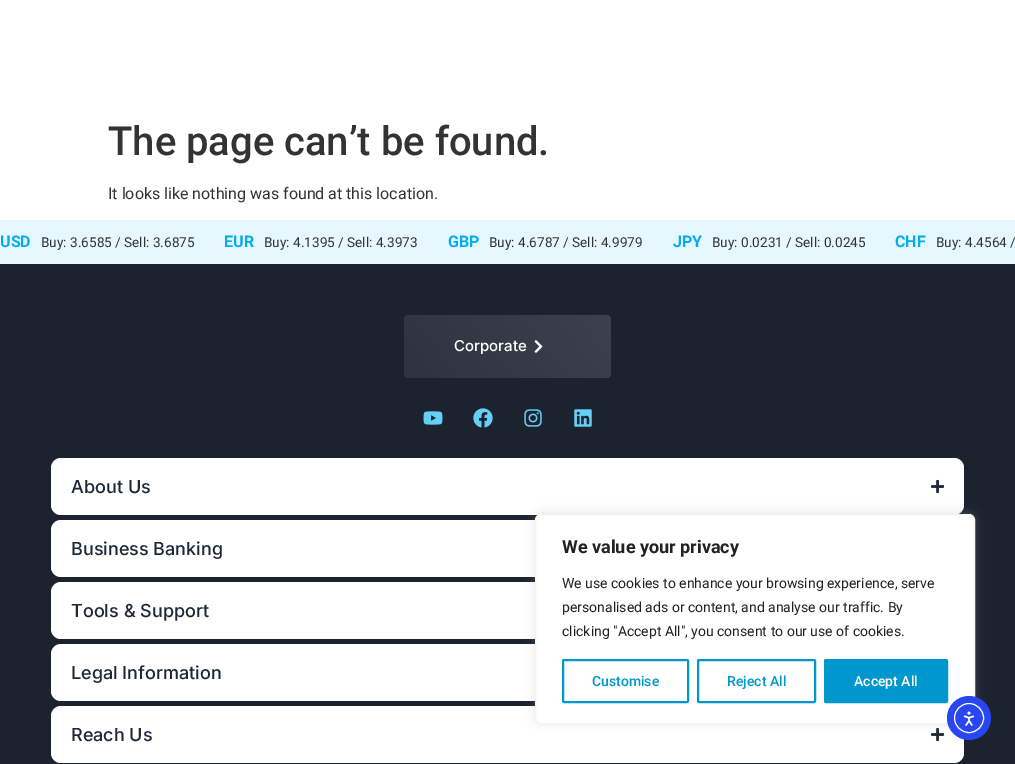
%!PS
<< /PageSize [1015 764] /PageUsesTransparency true >> setpagedevice
/alpha { dup .setfillconstantalpha .setstrokeconstantalpha } def
/roundrect { 5 dict begin { /r /h /w /y /x } { exch def } forall
  x r add y moveto x w add y 2 copy h add r arct x w add y h add x 1 index r arct
  x y h add x y r arct x y 2 copy exch w add exch r arct closepath end } def
/shadow { 12 dict begin { /a /b /q /h /w /y /x } { exch def } forall gsave /was 0 def
  9 -2 -9 { dup b mul 4 div /e exch def 1 sub .425 mul 2.718 exch exp 1 add a .99 .min exch div /now exch def
    1 1 now sub 1 was sub div sub alpha /was now def
    w h .min e 2 mul add 0 gt { x e sub y e sub w e 2 mul add h e 2 mul add
      q e add b .6 mul add w h .min 2 div e add .min 0 .max roundrect fill } if } for grestore end } def
/picture { 5 dict begin { /h /w /y /x /name } { exch def } forall
  gsave x y translate w h scale
  w h 8 [w 0 0 h 0 0] name (r) file false 3 colorimage grestore end } def
0 .pushpdf14devicefilter
0 764 translate 1 -1 scale
4 setmiterlimit
1 setgray
0 0 1015 764 rectfill
/Roboto-Medium [40 0 0 -40 0 0] selectfont
0.2 setgray
108 155 moveto (The page can’t be found.) show
/Roboto-Regular [16 0 0 -16 0 0] selectfont
108 199 moveto (It looks like nothing was found at this location.) show
0.902 0.969 0.996 setrgbcolor
0 220 1015 44 rectfill
/Roboto-Bold [16 0 0 -16 0 0] selectfont
0 0.682 0.937 setrgbcolor
0 247 moveto (USD) show
/Roboto-Regular [13.6 0 0 -13.6 0 0] selectfont
0.2 setgray
41 247 moveto (Buy: 3.6585 / Sell: 3.6875) show
/Roboto-Bold [16 0 0 -16 0 0] selectfont
0 0.682 0.937 setrgbcolor
224 247 moveto (EUR) show
/Roboto-Regular [13.6 0 0 -13.6 0 0] selectfont
0.2 setgray
264 247 moveto (Buy: 4.1395 / Sell: 4.3973) show
/Roboto-Bold [16 0 0 -16 0 0] selectfont
0 0.682 0.937 setrgbcolor
448 247 moveto (GBP) show
/Roboto-Regular [13.6 0 0 -13.6 0 0] selectfont
0.2 setgray
489 247 moveto (Buy: 4.6787 / Sell: 4.9979) show
/Roboto-Bold [16 0 0 -16 0 0] selectfont
0 0.682 0.937 setrgbcolor
673 247 moveto (JPY) show
/Roboto-Regular [13.6 0 0 -13.6 0 0] selectfont
0.2 setgray
712 247 moveto (Buy: 0.0231 / Sell: 0.0245) show
/Roboto-Bold [16 0 0 -16 0 0] selectfont
0 0.682 0.937 setrgbcolor
895 247 moveto (CHF) show
/Roboto-Regular [13.6 0 0 -13.6 0 0] selectfont
0.2 setgray
936 247 moveto (Buy: 4.4564 /) show
0.11 0.133 0.18 setrgbcolor
0 264 1015 500 rectfill
gsave 404 315 207 63 5 roundrect clip newpath
<< /ShadingType 2 /ColorSpace /DeviceRGB /Coords [431 410 584 283] /Extend [true true] /Function << /FunctionType 2 /Domain [0 1] /C0 [0.18 0.204 0.247] /C1 [0.231 0.259 0.302] /N 1 >> >> shfill grestore
/Inter-Medium [15 0 0 -15 0 0] selectfont
1 setgray
454 351 moveto (Corporate) show
(img1.rgb) 534 340 9 13 picture
(img2.rgb) 423 411 20 14 picture
(img3.rgb) 473 408 20 20 picture
(img4.rgb) 524 409 18 18 picture
(img5.rgb) 574 409 18 18 picture
51 458 913 57 10 roundrect fill
/Inter-Medium [18 0 0 -18 0 0] selectfont
0.114 0.161 0.224 setrgbcolor
71 493 moveto (About Us) show
(img6.rgb) 931 479 13 15 picture
1 setgray
51 520 913 57 10 roundrect fill
0.114 0.161 0.224 setrgbcolor
71 555 moveto (Business Banking) show
1 setgray
51 582 913 57 10 roundrect fill
0.114 0.161 0.224 setrgbcolor
71 617 moveto (Tools & Support) show
1 setgray
51 644 913 57 10 roundrect fill
0.114 0.161 0.224 setrgbcolor
71 679 moveto (Legal Information) show
1 setgray
51 706 913 57 10 roundrect fill
0.114 0.161 0.224 setrgbcolor
71 741 moveto (Reach Us) show
(img6.rgb) 931 727 13 15 picture
0.675 0.671 0.671 setrgbcolor
535 513 440 210 6 5 0.3 shadow
1 setgray
535.5 514.5 439 209 5.5 roundrect gsave fill grestore
0.957 setgray
stroke
/Roboto-Bold [18 0 0 -18 0 0] selectfont
0.129 setgray
562 553 moveto (We value your privacy) show
/Roboto-Regular [14 0 0 -14 0 0] selectfont
562 588 moveto (We use cookies to enhance your browsing experience, serve) show
562 612 moveto (personalised ads or content, and analyse our traffic. By) show
562 636 moveto (clicking "Accept All", you consent to our use of cookies.) show
0 0.592 0.808 setrgbcolor
2 setlinewidth
563 660 125 42 1 roundrect stroke
/Roboto-Medium [14 0 0 -14 0 0] selectfont
592 686 moveto (Customise) show
698 660 117 42 1 roundrect stroke
727 686 moveto (Reject All) show
825 660 122 42 1 roundrect gsave fill grestore
stroke
1 setgray
854 686 moveto (Accept All) show
0.157 0.278 0.953 setrgbcolor
newpath 969 718 22 0 360 arc closepath fill
1 setgray
1 setlinewidth
newpath 969 718 14.5 0 360 arc closepath stroke
(img7.rgb) 963 711 12 15 picture
.poppdf14devicefilter showpage
